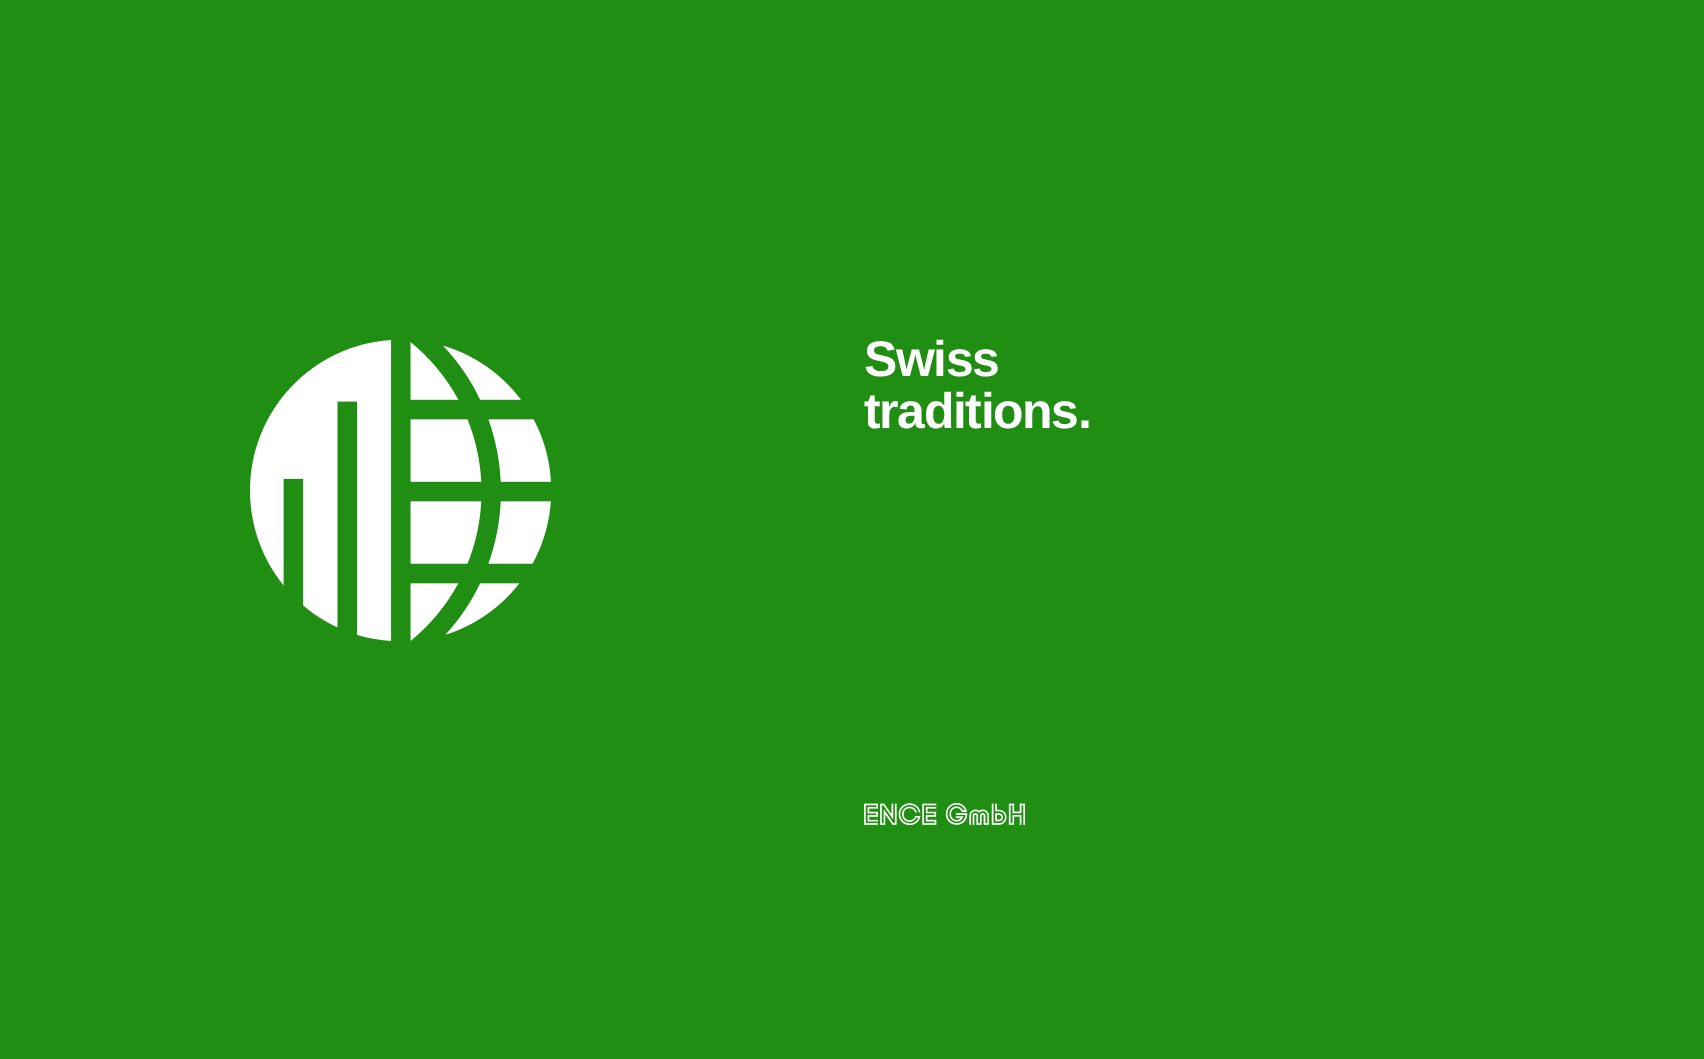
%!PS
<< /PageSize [1704 1059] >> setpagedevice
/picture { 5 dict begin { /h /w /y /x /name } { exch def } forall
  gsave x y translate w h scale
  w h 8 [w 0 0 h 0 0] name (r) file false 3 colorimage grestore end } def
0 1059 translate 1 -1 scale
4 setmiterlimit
0.125 0.557 0.071 setrgbcolor
0 0 1704 1059 rectfill
(img1.rgb) 250 340 301 301 picture
/LiberationSans-Bold [50 0 0 -50 0 0] selectfont
1 setgray
864 376 moveto -1.4 0 (Swiss) ashow
864 428 moveto -1.4 0 (traditions.) ashow
(img2.rgb) 864 803 161 22 picture
showpage
